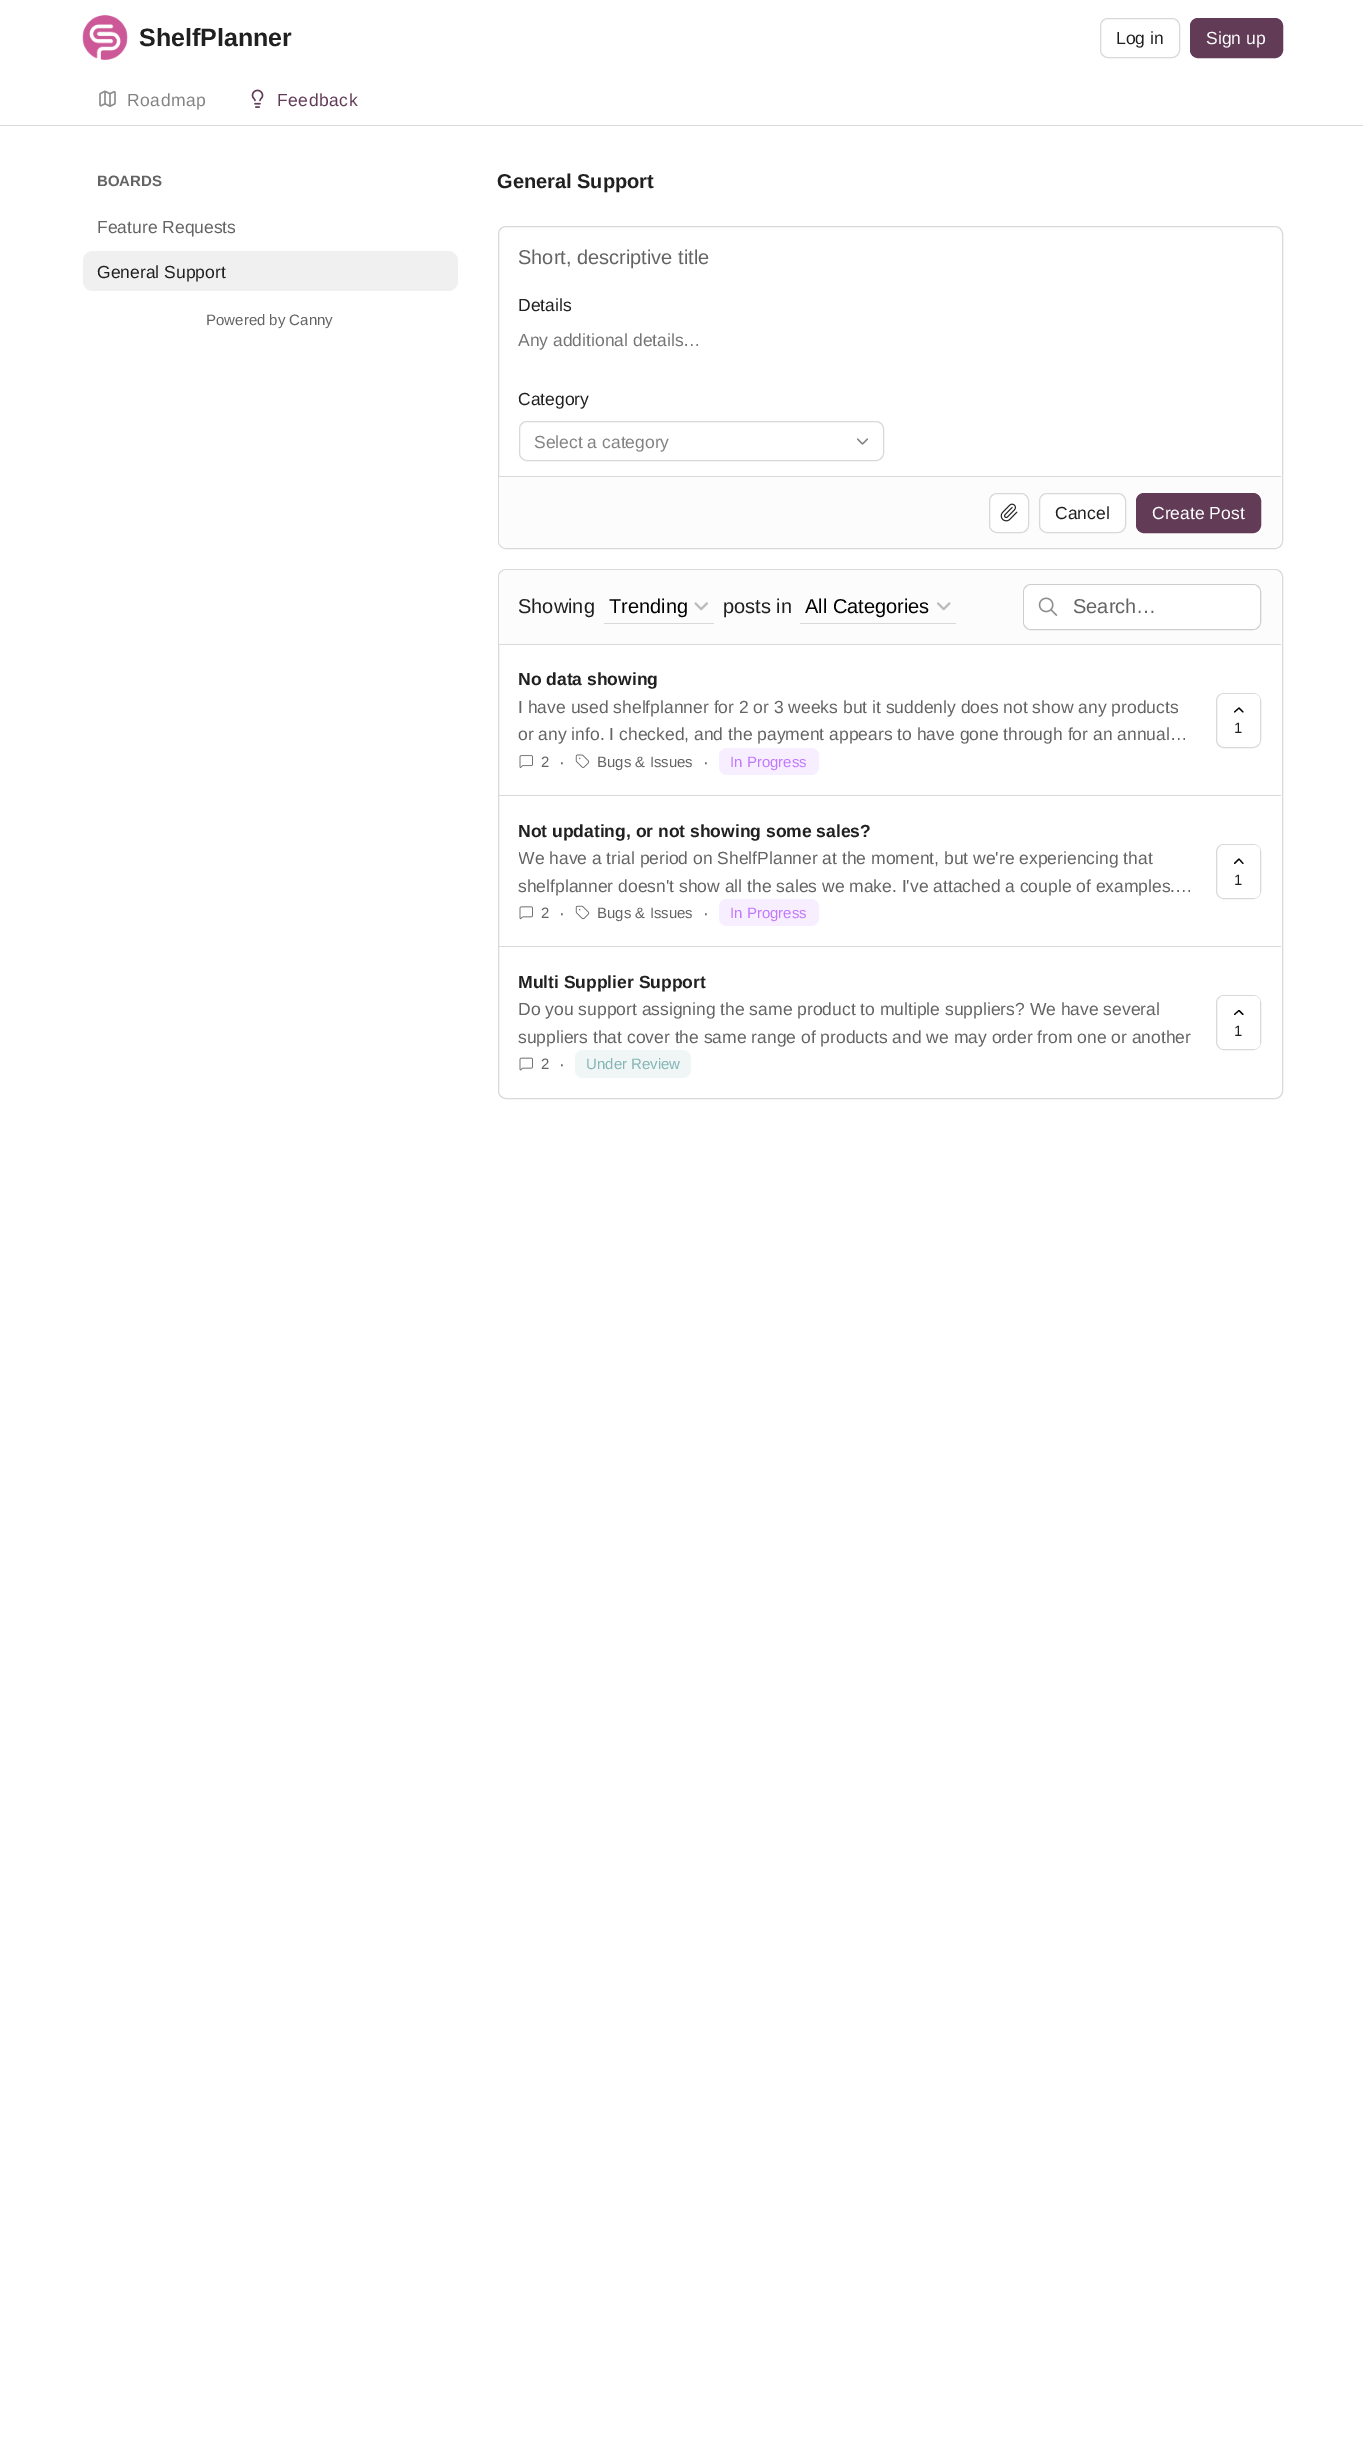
%!PS
<< /PageSize [1363 2453] >> setpagedevice
/roundrect { 5 dict begin { /r /h /w /y /x } { exch def } forall
  x r add y moveto x w add y 2 copy h add r arct x w add y h add x 1 index r arct
  x y h add x y r arct x y 2 copy exch w add exch r arct closepath end } def
/picture { 5 dict begin { /h /w /y /x /name } { exch def } forall
  gsave x y translate w h scale
  w h 8 [w 0 0 h 0 0] name (r) file false 3 colorimage grestore end } def
0 2453 translate 1 -1 scale
4 setmiterlimit
1 setgray
0 0 1363 2453 rectfill
0.851 setgray
0 125 1363 1 rectfill
(img1.rgb) 82 15 46 45 picture
/LiberationSans-Bold [25 0 0 -25 0 0] selectfont
0.125 setgray
139 46 moveto (ShelfPlanner) show
0.851 setgray
1100.5 18.5 79 39 7.5 roundrect stroke
/LiberationSans-Regular [17.5 0 0 -17.5 0 0] selectfont
0.125 setgray
1116 44 moveto (Log in) show
0.384 0.231 0.341 setrgbcolor
1190.5 18.5 92 39 7.5 roundrect gsave fill grestore
stroke
1 setgray
1206 44 moveto (Sign up) show
(img2.rgb) 99 90 17 17 picture
0.514 setgray
127 106 moveto 0.5 0 (Roadmap) ashow
(img3.rgb) 251 89 13 19 picture
0.384 0.231 0.341 setrgbcolor
277 106 moveto 0.5 0 (Feedback) ashow
/LiberationSans-Bold [15 0 0 -15 0 0] selectfont
0.392 setgray
97 186 moveto (BOARDS) show
/LiberationSans-Regular [17.5 0 0 -17.5 0 0] selectfont
97 233 moveto (Feature Requests) show
0.941 setgray
83 251 375 40 10 roundrect fill
0.125 setgray
97 278 moveto (General Support) show
/LiberationSans-Regular [15 0 0 -15 0 0] selectfont
0.392 setgray
206 325 moveto (Powered by Canny) show
/LiberationSans-Bold [20 0 0 -20 0 0] selectfont
0.125 setgray
497 188 moveto (General Support) show
0.851 setgray
498.5 226.5 784 322 7.5 roundrect stroke
/LiberationSans-Regular [20 0 0 -20 0 0] selectfont
0.392 setgray
518 264 moveto (Short, descriptive title) show
/LiberationSans-Regular [17.5 0 0 -17.5 0 0] selectfont
0.125 setgray
518 311 moveto (Details) show
0.459 setgray
518 346 moveto (Any additional details…) show
0.125 setgray
518 405 moveto (Category) show
0.851 setgray
519.5 421.5 364 39 7.5 roundrect stroke
0.514 setgray
534 448 moveto (Select a category) show
1.2 setlinewidth
1 setlinecap
1 setlinejoin
newpath 857.5 439 moveto 862.5 444 lineto 867.5 439 lineto stroke
0.988 setgray
newpath 499 476 moveto 1281 476 lineto 1281 540 lineto 1281 544.5 1277.5 548 1273 548 curveto 507 548 lineto 502.5 548 499 544.5 499 540 curveto closepath fill
0.851 setgray
499 476 782 1 rectfill
1 setgray
989.5 493.5 39 39 7.5 roundrect gsave fill grestore
0.851 setgray
1 setlinewidth
0 setlinecap
0 setlinejoin
stroke
(img4.rgb) 1000 503 18 19 picture
1 setgray
1039.5 493.5 86 39 7.5 roundrect gsave fill grestore
0.851 setgray
stroke
0.125 setgray
1055 519 moveto (Cancel) show
0.384 0.231 0.341 setrgbcolor
1136.5 493.5 124 39 7.5 roundrect gsave fill grestore
stroke
1 setgray
1152 519 moveto (Create Post) show
0.851 setgray
498.5 569.5 784 529 7.5 roundrect stroke
0.988 setgray
newpath 507 570 moveto 1273 570 lineto 1277.5 570 1281 573.5 1281 578 curveto 1281 644 lineto 499 644 lineto 499 578 lineto 499 573.5 502.5 570 507 570 curveto closepath fill
/LiberationSans-Regular [20 0 0 -20 0 0] selectfont
0.125 setgray
518 613 moveto (Showing) show
0.851 setgray
604 623 110 1 rectfill
0 setgray
609 613 moveto (Trending) show
(img5.rgb) 694 602 14 9 picture
0.125 setgray
723 613 moveto (posts in) show
0.851 setgray
800 623 156 1 rectfill
0 setgray
805 613 moveto (All Categories) show
(img6.rgb) 937 602 14 9 picture
1 setgray
1023.5 584.5 237 45 7.5 roundrect gsave fill grestore
0.808 setgray
stroke
1 setgray
1024 585 236 44 8 roundrect fill
(img7.rgb) 1038 597 20 19 picture
0.392 setgray
1073 613 moveto (Search…) show
0.851 setgray
499 644 782 1 rectfill
/LiberationSans-Bold [17.5 0 0 -17.5 0 0] selectfont
0.125 setgray
518 685 moveto (No data showing) show
/LiberationSans-Regular [17.5 0 0 -17.5 0 0] selectfont
0.392 setgray
518 713 moveto (I have used shelfplanner for 2 or 3 weeks but it suddenly does not show any products) show
518 740 moveto (or any info. I checked, and the payment appears to have gone through for an annual…) show
(img8.rgb) 519 755 14 13 picture
/LiberationSans-Regular [15 0 0 -15 0 0] selectfont
541 767 moveto (2) show
/LiberationSans-Regular [17.5 0 0 -17.5 0 0] selectfont
559 768 moveto (·) show
(img9.rgb) 575 754 15 14 picture
/LiberationSans-Regular [15 0 0 -15 0 0] selectfont
597 767 moveto (Bugs & Issues) show
/LiberationSans-Regular [17.5 0 0 -17.5 0 0] selectfont
703 768 moveto (·) show
0.969 0.933 1 setrgbcolor
719 748 100 27 8 roundrect fill
/LiberationSans-Regular [15 0 0 -15 0 0] selectfont
0.757 0.478 1 setrgbcolor
730 767 moveto (In Progress) show
0.851 setgray
1216.5 693.5 44 54 7.5 roundrect stroke
1 setgray
1218 694 42 52 6 roundrect fill
0 setgray
1.1 setlinewidth
1 setlinecap
1 setlinejoin
newpath 1243 712 moveto 1239 708 lineto 1234.5 712 lineto stroke
0.125 setgray
1234 733 moveto (1) show
0.851 setgray
499 795 782 1 rectfill
/LiberationSans-Bold [17.5 0 0 -17.5 0 0] selectfont
0.125 setgray
518 837 moveto (Not updating, or not showing some sales?) show
gsave
519 844 677 55 rectclip
/LiberationSans-Regular [17.5 0 0 -17.5 0 0] selectfont
0.392 setgray
518 864 moveto (We have a trial period on ShelfPlanner at the moment, but we're experiencing that) show
grestore
/LiberationSans-Regular [17.5 0 0 -17.5 0 0] selectfont
0.392 setgray
518 892 moveto (shelfplanner doesn't show all the sales we make. I've attached a couple of examples.…) show
(img10.rgb) 519 906 14 14 picture
/LiberationSans-Regular [15 0 0 -15 0 0] selectfont
541 918 moveto (2) show
/LiberationSans-Regular [17.5 0 0 -17.5 0 0] selectfont
559 919 moveto (·) show
(img11.rgb) 575 905 15 15 picture
/LiberationSans-Regular [15 0 0 -15 0 0] selectfont
597 918 moveto (Bugs & Issues) show
/LiberationSans-Regular [17.5 0 0 -17.5 0 0] selectfont
703 919 moveto (·) show
0.969 0.933 1 setrgbcolor
719 899 100 27 8 roundrect fill
/LiberationSans-Regular [15 0 0 -15 0 0] selectfont
0.757 0.478 1 setrgbcolor
730 918 moveto (In Progress) show
0.851 setgray
1 setlinewidth
0 setlinecap
0 setlinejoin
1216.5 844.5 44 54 7.5 roundrect stroke
1 setgray
1218 845 42 53 6 roundrect fill
0 setgray
1.1 setlinewidth
1 setlinecap
1 setlinejoin
newpath 1243 863.5 moveto 1239 859 lineto 1234.5 863.5 lineto stroke
0.125 setgray
1234 885 moveto (1) show
0.851 setgray
499 946 782 1 rectfill
/LiberationSans-Bold [17.5 0 0 -17.5 0 0] selectfont
0.125 setgray
518 988 moveto (Multi Supplier Support) show
/LiberationSans-Regular [17.5 0 0 -17.5 0 0] selectfont
0.392 setgray
518 1015 moveto (Do you support assigning the same product to multiple suppliers? We have several) show
518 1043 moveto (suppliers that cover the same range of products and we may order from one or another) show
(img12.rgb) 519 1057 14 14 picture
/LiberationSans-Regular [15 0 0 -15 0 0] selectfont
541 1069 moveto (2) show
/LiberationSans-Regular [17.5 0 0 -17.5 0 0] selectfont
559 1070 moveto (·) show
0.941 0.965 0.965 setrgbcolor
575 1050 116 28 8 roundrect fill
/LiberationSans-Regular [15 0 0 -15 0 0] selectfont
0.522 0.71 0.71 setrgbcolor
586 1069 moveto (Under Review) show
0.851 setgray
1 setlinewidth
0 setlinecap
0 setlinejoin
1216.5 995.5 44 54 7.5 roundrect stroke
1 setgray
1218 996 42 53 6 roundrect fill
0 setgray
1.1 setlinewidth
1 setlinecap
1 setlinejoin
newpath 1243 1014.5 moveto 1239 1010.5 lineto 1234.5 1014.5 lineto stroke
0.125 setgray
1234 1036 moveto (1) show
showpage
